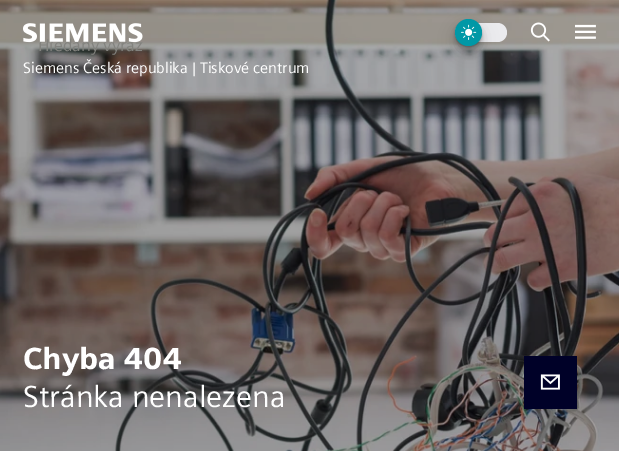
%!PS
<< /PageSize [619 451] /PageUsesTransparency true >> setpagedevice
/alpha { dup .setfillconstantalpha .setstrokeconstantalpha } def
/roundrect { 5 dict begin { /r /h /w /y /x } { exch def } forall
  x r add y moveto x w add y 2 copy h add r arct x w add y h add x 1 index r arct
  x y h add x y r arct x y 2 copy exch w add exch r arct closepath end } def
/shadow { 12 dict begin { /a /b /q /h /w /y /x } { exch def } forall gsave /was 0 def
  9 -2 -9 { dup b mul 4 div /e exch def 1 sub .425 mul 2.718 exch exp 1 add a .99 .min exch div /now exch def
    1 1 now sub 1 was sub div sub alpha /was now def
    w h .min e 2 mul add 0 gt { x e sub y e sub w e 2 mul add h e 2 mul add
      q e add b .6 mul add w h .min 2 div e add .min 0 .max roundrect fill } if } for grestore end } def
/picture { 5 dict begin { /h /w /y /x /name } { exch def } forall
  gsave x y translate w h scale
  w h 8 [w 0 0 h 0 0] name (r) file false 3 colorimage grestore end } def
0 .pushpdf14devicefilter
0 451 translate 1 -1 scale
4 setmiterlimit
1 setgray
0 0 619 451 rectfill
(img5.rgb) 0 0 619 451 picture
(img1.rgb) 575 24 21 15 picture
(img2.rgb) 530 22 20 20 picture
/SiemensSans-Regular [17 0 0 -17 0 0] selectfont
0.51 0.51 0.494 setrgbcolor
38 51 moveto (Hledaný výraz) show
0.922 0.922 0.933 setrgbcolor
455 23 52 19 9.5 roundrect fill
0 setgray
455 27 27 27 13.5 8 0.11 shadow
455 25 27 27 13.5 4 0.11 shadow
455 23 27 27 13.5 2 0.11 shadow
455 21 27 27 13.5 1 0.11 shadow
455 20 27 27 13.5 0.5 0.11 shadow
0 0.596 0.651 setrgbcolor
newpath 468.5 32.5 13.5 0 360 arc closepath fill
(img3.rgb) 461 24 16 16 picture
(img4.rgb) 23 23 120 20 picture
/SiemensSans-Regular [15.25 0 0 -15.25 0 0] selectfont
1 setgray
23 73 moveto (Siemens Česká republika | Tiskové centrum) show
/SiemensSans-Black [30.5 0 0 -30.5 0 0] selectfont
23 369 moveto (Chyba 404) show
/SiemensSans-Regular [30.5 0 0 -30.5 0 0] selectfont
23 407 moveto (Stránka nenalezena) show
0 0.004 0.157 setrgbcolor
524 356 53 53 rectfill
(img6.rgb) 540 374 20 16 picture
.poppdf14devicefilter showpage
